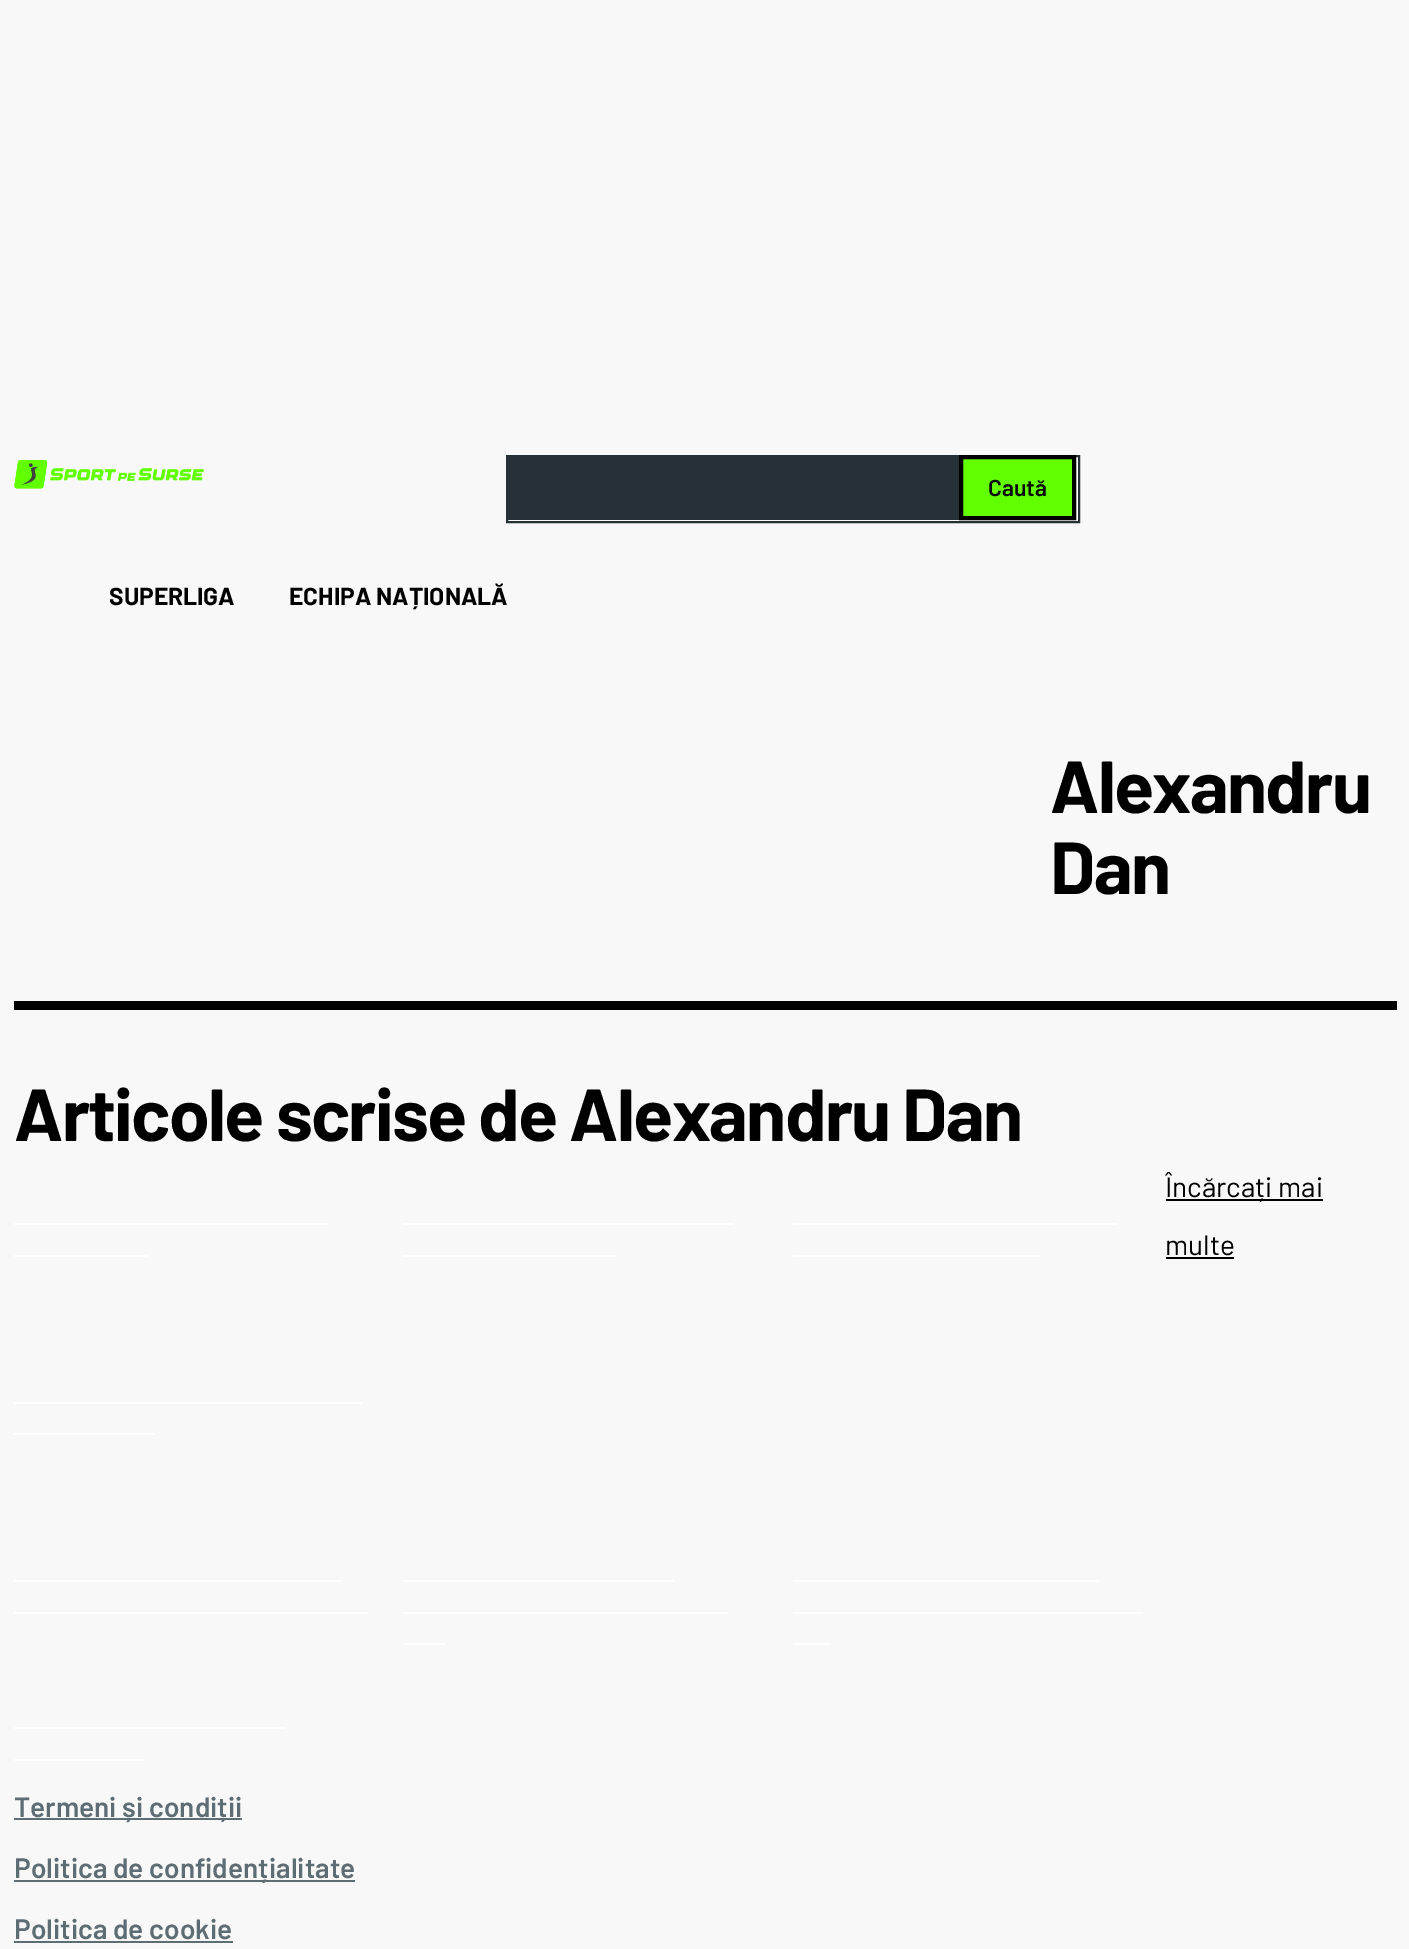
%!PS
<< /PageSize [1409 1949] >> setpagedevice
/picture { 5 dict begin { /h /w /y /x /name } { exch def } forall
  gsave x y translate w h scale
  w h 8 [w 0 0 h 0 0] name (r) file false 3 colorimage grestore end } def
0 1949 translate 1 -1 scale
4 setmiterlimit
0.973 setgray
0 0 1409 1949 rectfill
(img1.rgb) 14 460 190 29 picture
0.145 0.192 0.212 setrgbcolor
508 457 451 63 rectfill
2 setlinewidth
507 456 572 66 rectstroke
0.38 1 0 setrgbcolor
newpath 961 457 moveto 1074 457 lineto 1074 518 lineto 961 518 lineto closepath gsave fill grestore
0 setgray
4 setlinewidth
stroke
/Barlow-SemiBold [23 0 0 -23 0 0] selectfont
0.039 setgray
988 496 moveto (Caută) show
/Barlow-Bold [24.5 0 0 -24.5 0 0] selectfont
0 setgray
109 605 moveto (SUPERLIGA) show
289 605 moveto (ECHIPA NAȚIONALĂ) show
/Barlow-Bold [73.5 0 0 -73.5 0 0] selectfont
1050 813 moveto -1.75 0 (Alexandru) ashow
1050 894 moveto -1.75 0 (Dan) ashow
14 1001 1383 9 rectfill
14 1141 moveto -1.75 0 (Articole scrise de Alexandru Dan) ashow
1166 1199 157 2 rectfill
/Barlow-Regular [28 0 0 -28 0 0] selectfont
1165 1197 moveto (Încărcați mai) show
1165 1255 moveto (multe) show
1166 1257 68 2 rectfill
1 setgray
14 1223 315 2 rectfill
14 1255 133 2 rectfill
404 1223 328 2 rectfill
404 1255 212 2 rectfill
793 1223 324 2 rectfill
793 1255 248 2 rectfill
14 1402 348 2 rectfill
14 1433 140 2 rectfill
14 1580 327 2 rectfill
14 1612 354 2 rectfill
404 1580 270 2 rectfill
404 1612 324 2 rectfill
404 1643 42 2 rectfill
793 1580 306 2 rectfill
793 1612 350 2 rectfill
793 1643 38 2 rectfill
14 1727 271 2 rectfill
14 1759 131 2 rectfill
0.369 0.427 0.455 setrgbcolor
14 1818 228 2 rectfill
/Barlow-SemiBold [28 0 0 -28 0 0] selectfont
14 1817 moveto (Termeni și condiții) show
14 1880 341 2 rectfill
14 1878 moveto (Politica de confidențialitate) show
14 1939 moveto (Politica de cookie) show
14 1941 219 2 rectfill
showpage
